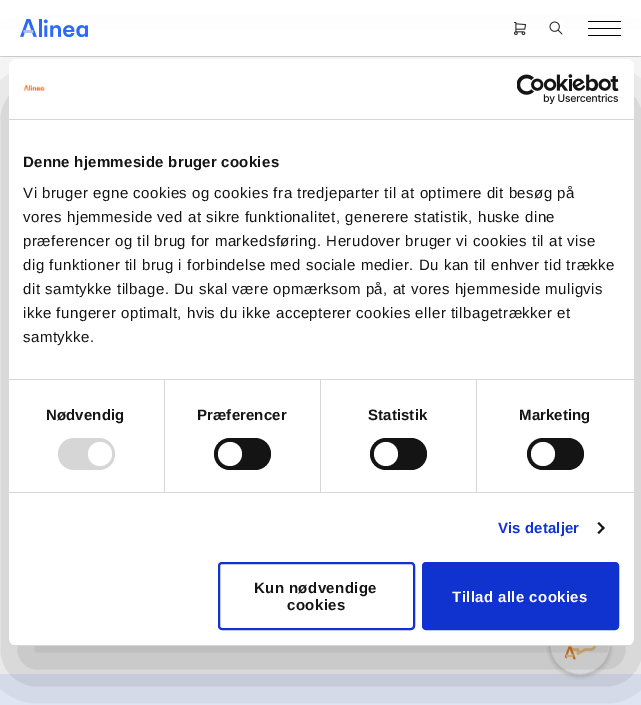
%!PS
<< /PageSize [641 705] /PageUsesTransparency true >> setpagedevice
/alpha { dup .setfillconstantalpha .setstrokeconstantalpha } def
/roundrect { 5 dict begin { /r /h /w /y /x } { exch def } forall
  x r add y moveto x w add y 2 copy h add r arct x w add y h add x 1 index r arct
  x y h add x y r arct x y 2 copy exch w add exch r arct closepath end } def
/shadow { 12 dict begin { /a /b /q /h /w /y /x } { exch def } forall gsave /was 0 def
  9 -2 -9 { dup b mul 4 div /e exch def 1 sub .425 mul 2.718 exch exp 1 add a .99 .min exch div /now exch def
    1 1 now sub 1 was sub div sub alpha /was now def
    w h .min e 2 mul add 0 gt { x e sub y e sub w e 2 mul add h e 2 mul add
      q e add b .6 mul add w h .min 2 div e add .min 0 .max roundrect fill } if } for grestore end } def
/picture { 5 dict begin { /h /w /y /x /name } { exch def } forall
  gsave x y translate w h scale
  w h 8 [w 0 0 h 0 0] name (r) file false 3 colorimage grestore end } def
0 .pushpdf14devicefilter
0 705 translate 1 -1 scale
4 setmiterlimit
1 setgray
0 0 641 705 rectfill
0.918 0.941 0.996 setrgbcolor
0 674 641 31 rectfill
0.086 setgray
549 615 62 62 31 2 0.16 shadow
1 setgray
newpath 580 644 30.5 0 360 arc closepath gsave fill grestore
0.886 setgray
stroke
(img6.rgb) 564 646 33 14 picture
0 setgray
9 91 625 587 8 34 0.3 shadow
0.2 alpha
0.106 setgray
0 56 641 1 rectfill
1 alpha
1 setgray
0 29 641 27 rectfill
(img1.rgb) 20 19 68 18 picture
(img2.rgb) 514 22 12 13 picture
(img3.rgb) 549 21 14 14 picture
0 setgray
588 21 33 1 rectfill
588 28 33 1 rectfill
588 35 33 1 rectfill
1 setgray
9 59 625 587 8 roundrect fill
0.839 setgray
9 119 625 1 rectfill
(img4.rgb) 23 84 22 7 picture
(img5.rgb) 517 74 102 30 picture
9 379 625 1 rectfill
/LiberationSans-Bold [15 0 0 -15 0 0] selectfont
0.078 setgray
23 167 moveto 0.25 0 (Denne hjemmeside bruger cookies) ashow
/LiberationSans-Regular [15 0 0 -15 0 0] selectfont
23 198 moveto 0.5 0 (Vi bruger egne cookies og cookies fra tredjeparter til at optimere dit besøg på) ashow
23 222 moveto 0.5 0 (vores hjemmeside ved at sikre funktionalitet, generere statistik, huske dine) ashow
23 246 moveto 0.5 0 (præferencer og til brug for markedsføring. Herudover bruger vi cookies til at vise) ashow
23 270 moveto 0.5 0 (dig funktioner til brug i forbindelse med sociale medier. Du kan til enhver tid trække) ashow
23 294 moveto 0.5 0 (dit samtykke tilbage. Du skal være opmærksom på, at vores hjemmeside muligvis) ashow
23 318 moveto 0.5 0 (ikke fungerer optimalt, hvis du ikke accepterer cookies eller tilbagetrækker et) ashow
23 342 moveto 0.5 0 (samtykke.) ashow
0.839 setgray
9 492 625 1 rectfill
164 380 1 112 rectfill
/LiberationSans-Bold [15 0 0 -15 0 0] selectfont
0.078 setgray
46 420 moveto 0.1 0 (Nødvendig) ashow
0.839 setgray
58 438 57 32 16 roundrect fill
1 setgray
newpath 100 454 12 0 360 arc closepath fill
0.839 setgray
320 380 1 112 rectfill
0.078 setgray
197 420 moveto 0.1 0 (Præferencer) ashow
214 438 57 32 16 roundrect fill
1 setgray
newpath 230 454 12 0 360 arc closepath fill
0.839 setgray
476 380 1 112 rectfill
0.078 setgray
368 420 moveto 0.1 0 (Statistik) ashow
370 438 57 32 16 roundrect fill
1 setgray
newpath 386 454 12 0 360 arc closepath fill
0.078 setgray
519 420 moveto 0.1 0 (Marketing) ashow
527 438 57 32 16 roundrect fill
1 setgray
newpath 543 454 12 0 360 arc closepath fill
0.063 0.196 0.812 setrgbcolor
498 533 moveto 0.1 0 (Vis detaljer) ashow
0.078 setgray
newpath 599 522 moveto 604.5 528 lineto 603.5 529.5 lineto 597.5 523.5 lineto closepath fill
newpath 603.5 526.5 moveto 604.5 528 lineto 599 534 lineto 597.5 532.5 lineto closepath fill
gsave
9 59 625 587 8 roundrect clip newpath
0.839 setgray
9 645 625 1 rectfill
grestore
0.063 0.196 0.812 setrgbcolor
2 setlinewidth
219 563 195 66 3 roundrect stroke
0.078 setgray
254 593 moveto 0.4 0 (Kun nødvendige) ashow
287 610 moveto 0.4 0 (cookies) ashow
0.063 0.196 0.812 setrgbcolor
423 563 195 66 3 roundrect gsave fill grestore
stroke
1 setgray
452 602 moveto 0.4 0 (Tillad alle cookies) ashow
.poppdf14devicefilter showpage
